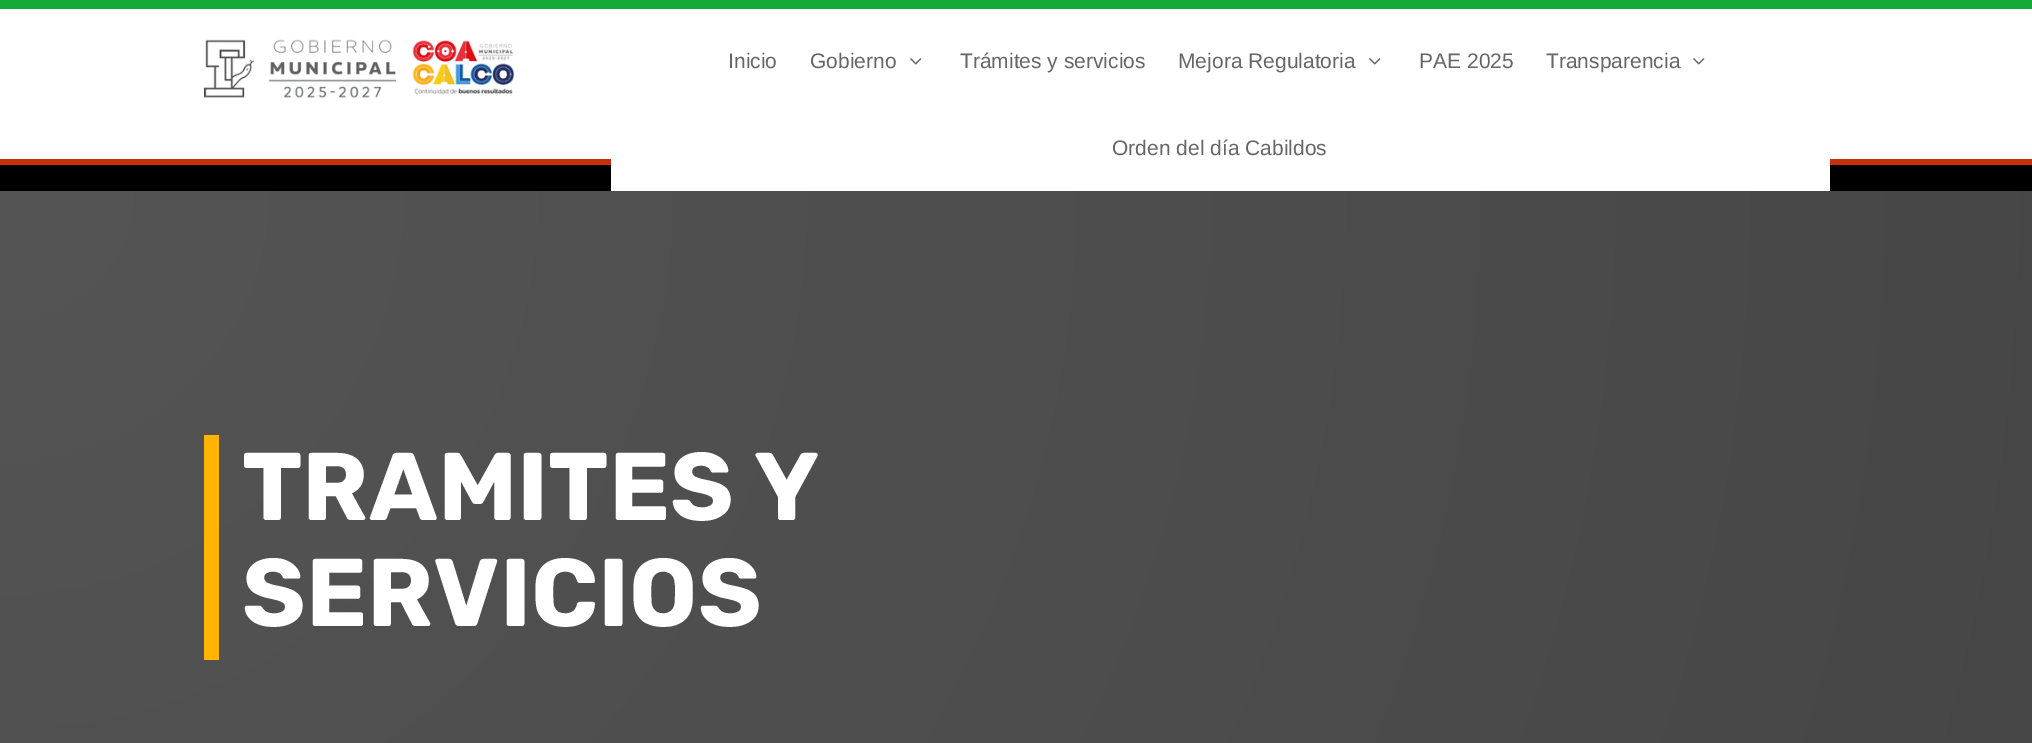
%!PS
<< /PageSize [2032 743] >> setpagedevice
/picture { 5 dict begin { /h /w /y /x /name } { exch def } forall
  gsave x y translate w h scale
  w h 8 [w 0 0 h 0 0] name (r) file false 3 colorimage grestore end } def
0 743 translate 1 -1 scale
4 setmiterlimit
0 setgray
0 0 2032 743 rectfill
1 setgray
0 9 2032 150 rectfill
0.075 0.667 0.224 setrgbcolor
0 0 2032 9 rectfill
0.773 0.192 0.051 setrgbcolor
0 159 2032 6 rectfill
(img1.rgb) 204 39 311 59 picture
1 setgray
611 159 1219 32 rectfill
/LiberationSans-Regular [21 0 0 -21 0 0] selectfont
0.4 setgray
728 68 moveto (Inicio) show
810 68 moveto (Gobierno) show
(img2.rgb) 910 58 12 7 picture
960 68 moveto (Trámites y servicios) show
1178 68 moveto (Mejora Regulatoria) show
(img2.rgb) 1369 58 12 7 picture
1419 68 moveto (PAE 2025) show
1546 68 moveto (Transparencia) show
(img2.rgb) 1693 58 12 7 picture
1112 155 moveto (Orden del día Cabildos) show
gsave newpath 0 191 moveto 2032 191 lineto 2032 743 lineto 0 743 lineto closepath clip newpath 0 191 translate 2154 2154 scale
<< /ShadingType 3 /ColorSpace /DeviceRGB /Coords [0 0 0 0 0 1] /Extend [true true] /Function << /FunctionType 2 /Domain [0 1] /C0 [0.333 0.333 0.333] /C1 [0.275 0.275 0.275] /N 1 >> >> shfill grestore
1 0.706 0 setrgbcolor
204 435 15 225 rectfill
/Rubik-Light [96 0 0 -96 0 0] selectfont
1 setgray
242 520 moveto (TRAMITES Y) show
242 626 moveto (SERVICIOS) show
showpage
